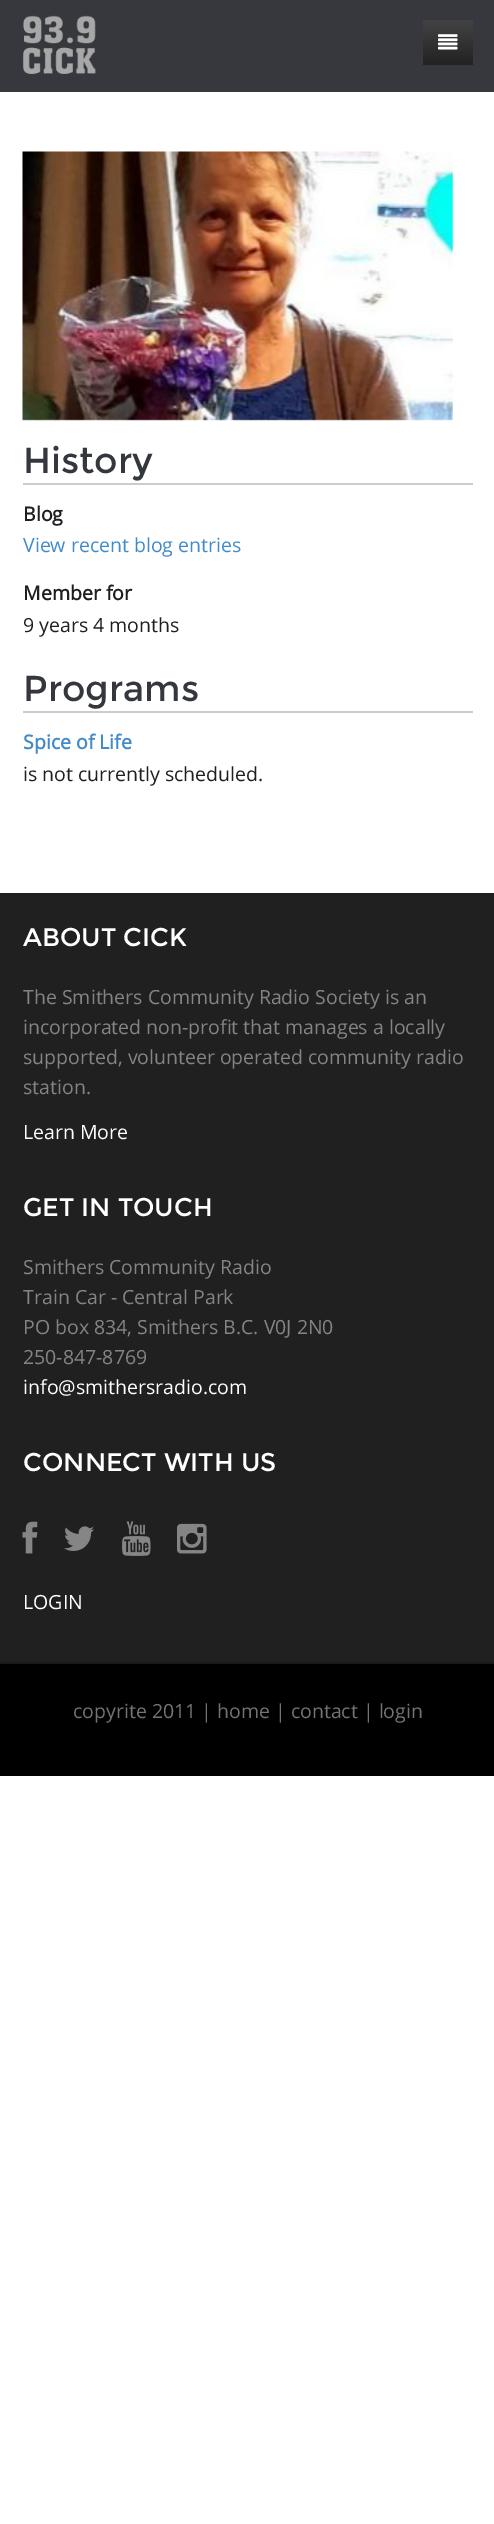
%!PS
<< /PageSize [494 2524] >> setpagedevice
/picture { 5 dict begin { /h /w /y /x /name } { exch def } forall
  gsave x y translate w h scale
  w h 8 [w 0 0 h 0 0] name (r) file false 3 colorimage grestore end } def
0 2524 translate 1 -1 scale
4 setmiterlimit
1 setgray
0 0 494 2524 rectfill
0.216 0.22 0.239 setrgbcolor
0 0 494 92 rectfill
(img1.rgb) 22 15 74 59 picture
gsave newpath 423 20 moveto 473 20 lineto 473 65 lineto 423 65 lineto closepath clip newpath
<< /ShadingType 2 /ColorSpace /DeviceRGB /Coords [448 19 448 65] /Extend [true true] /Function << /FunctionType 2 /Domain [0 1] /C0 [0.267 0.267 0.267] /C1 [0.133 0.133 0.133] /N 1 >> >> shfill grestore
(img2.rgb) 438 34 20 16 picture
(img3.rgb) 22 151 431 270 picture
0.8 setgray
23 483 450 2 rectfill
/Montserrat-Regular [36 0 0 -36 0 0] selectfont
0.204 0.216 0.243 setrgbcolor
23 473 moveto (History) show
/OpenSans-Bold [19.5 0 0 -19.5 0 0] selectfont
0.122 setgray
23 521 moveto (Blog) show
/OpenSans-Regular [19.5 0 0 -19.5 0 0] selectfont
0.259 0.545 0.792 setrgbcolor
23 552 moveto (View recent blog entries) show
/OpenSans-Bold [19.5 0 0 -19.5 0 0] selectfont
0.122 setgray
23 600 moveto (Member for) show
/OpenSans-Regular [19.5 0 0 -19.5 0 0] selectfont
23 632 moveto (9 years 4 months) show
0.8 setgray
23 711 450 2 rectfill
/Montserrat-Regular [36 0 0 -36 0 0] selectfont
0.204 0.216 0.243 setrgbcolor
23 701 moveto (Programs) show
/OpenSans-Bold [19.5 0 0 -19.5 0 0] selectfont
0.259 0.545 0.792 setrgbcolor
23 749 moveto (Spice of Life) show
/OpenSans-Regular [19.5 0 0 -19.5 0 0] selectfont
0.122 setgray
23 781 moveto (is not currently scheduled.) show
0.125 setgray
0 893 494 769 rectfill
/Montserrat-Regular [25.5 0 0 -25.5 0 0] selectfont
1 setgray
23 946 moveto (ABOUT CICK) show
/OpenSans-Regular [19.5 0 0 -19.5 0 0] selectfont
0.518 setgray
23 1004 moveto (The Smithers Community Radio Society is an) show
23 1034 moveto (incorporated non-profit that manages a locally) show
23 1064 moveto (supported, volunteer operated community radio) show
23 1094 moveto (station.) show
1 setgray
23 1139 moveto (Learn More) show
/Montserrat-Regular [25.5 0 0 -25.5 0 0] selectfont
23 1216 moveto (GET IN TOUCH) show
/OpenSans-Regular [19.5 0 0 -19.5 0 0] selectfont
0.518 setgray
23 1274 moveto (Smithers Community Radio) show
23 1304 moveto (Train Car - Central Park) show
23 1334 moveto (PO box 834, Smithers B.C. V0J 2N0) show
23 1364 moveto (250-847-8769) show
1 setgray
23 1394 moveto (info@smithersradio.com) show
/Montserrat-Regular [25.5 0 0 -25.5 0 0] selectfont
23 1471 moveto (CONNECT WITH US) show
(img4.rgb) 22 1521 16 33 picture
(img5.rgb) 64 1526 30 25 picture
(img6.rgb) 122 1521 29 35 picture
(img7.rgb) 177 1523 30 31 picture
/OpenSans-Regular [19.5 0 0 -19.5 0 0] selectfont
23 1609 moveto (LOGIN) show
0 setgray
0 1664 494 112 rectfill
0.102 setgray
0 1662 494 2 rectfill
0.451 setgray
73 1718 moveto (copyrite 2011 | home | contact | login) show
showpage
